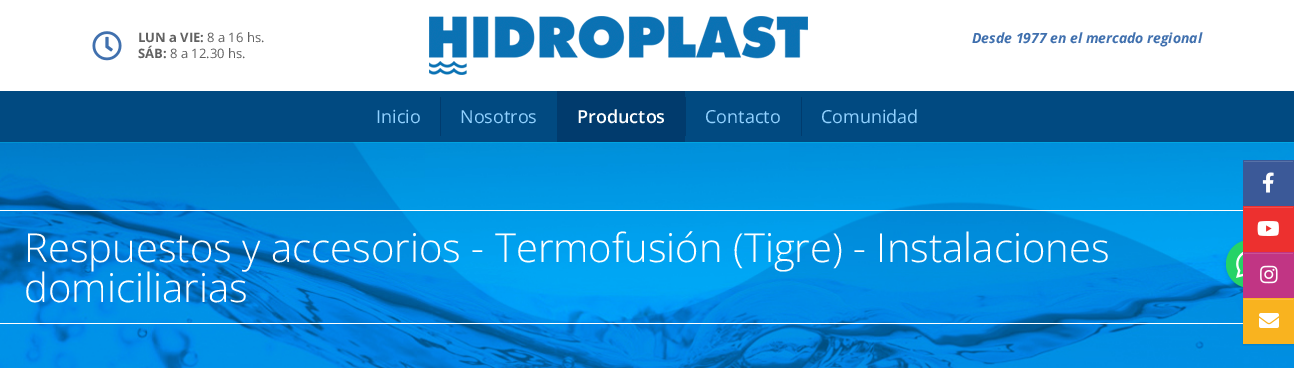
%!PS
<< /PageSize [1294 368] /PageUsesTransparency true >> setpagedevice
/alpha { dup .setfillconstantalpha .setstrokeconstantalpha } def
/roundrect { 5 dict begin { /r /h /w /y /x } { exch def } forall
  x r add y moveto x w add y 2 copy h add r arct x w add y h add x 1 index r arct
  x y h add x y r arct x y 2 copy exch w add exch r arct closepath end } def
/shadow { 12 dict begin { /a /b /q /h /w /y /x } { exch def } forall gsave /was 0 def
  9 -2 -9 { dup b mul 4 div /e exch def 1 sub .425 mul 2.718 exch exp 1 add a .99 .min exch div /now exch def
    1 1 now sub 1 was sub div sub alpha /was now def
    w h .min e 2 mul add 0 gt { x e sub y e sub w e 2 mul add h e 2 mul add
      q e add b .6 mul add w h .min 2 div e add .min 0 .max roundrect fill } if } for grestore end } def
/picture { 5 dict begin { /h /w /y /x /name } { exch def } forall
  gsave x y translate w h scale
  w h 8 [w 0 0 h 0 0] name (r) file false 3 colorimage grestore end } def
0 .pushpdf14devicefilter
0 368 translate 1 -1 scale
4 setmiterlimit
1 setgray
0 0 1294 368 rectfill
(img1.rgb) 92 31 30 30 picture
/OpenSans-Bold [13 0 0 -13 0 0] selectfont
0.38 setgray
138 42 moveto (LUN a VIE:) show
/OpenSans-Regular [13 0 0 -13 0 0] selectfont
207 42 moveto (8 a 16 hs.) show
/OpenSans-Bold [13 0 0 -13 0 0] selectfont
138 58 moveto (SÁB:) show
/OpenSans-Regular [13 0 0 -13 0 0] selectfont
170 58 moveto (8 a 12.30 hs.) show
(img2.rgb) 429 16 379 59 picture
/OpenSans-BoldItalic [14 0 0 -14 0 0] selectfont
0.251 0.439 0.682 setrgbcolor
972 43 moveto (Desde 1977 en el mercado regional) show
0.004 0.29 0.506 setrgbcolor
0 91 1294 51 rectfill
/OpenSans-Regular [18 0 0 -18 0 0] selectfont
0.569 0.82 1 setrgbcolor
376 123 moveto (Inicio) show
0.004 0.231 0.427 setrgbcolor
440 97 1 39 rectfill
0.569 0.82 1 setrgbcolor
460 123 moveto (Nosotros) show
0.004 0.231 0.427 setrgbcolor
557 91 128 51 rectfill
/OpenSans-SemiBold [18 0 0 -18 0 0] selectfont
1 setgray
577 123 moveto (Productos) show
0.004 0.231 0.427 setrgbcolor
685 97 1 39 rectfill
/OpenSans-Regular [18 0 0 -18 0 0] selectfont
0.569 0.82 1 setrgbcolor
705 123 moveto (Contacto) show
0.004 0.231 0.427 setrgbcolor
801 97 1 39 rectfill
0.569 0.82 1 setrgbcolor
821 123 moveto (Comunidad) show
(img3.rgb) 0 142 1294 226 picture
1 setgray
0 210 1243 1 rectfill
0 323 1243 1 rectfill
/OpenSans-Light [40 0 0 -40 0 0] selectfont
24 262 moveto (Respuestos y accesorios - Termofusión \(Tigre\) - Instalaciones) show
24 302 moveto (domiciliarias) show
0.231 0.349 0.596 setrgbcolor
1243 160 51 46 rectfill
0.345 0.447 0.655 setrgbcolor
1244 161 49 1 rectfill
(img4.rgb) 1262 172 12 21 picture
0 setgray
1228 242 48 48 24 2.5 0.25 shadow
0.145 0.827 0.4 setrgbcolor
newpath 1250 264 24 0 360 arc closepath fill
0.929 0.188 0.184 setrgbcolor
1243 206 51 46 rectfill
0.941 0.31 0.306 setrgbcolor
1244 207 49 1 rectfill
(img5.rgb) 1257 221 22 15 picture
0.757 0.208 0.518 setrgbcolor
1243 252 51 46 rectfill
0.792 0.325 0.588 setrgbcolor
1244 253 49 1 rectfill
(img6.rgb) 1260 265 18 19 picture
0 setgray
1243 299 51 46 0 0.5 0.07 shadow
0.976 0.702 0.122 setrgbcolor
1243 298 51 46 rectfill
0.98 0.745 0.255 setrgbcolor
1244 299 49 1 rectfill
(img7.rgb) 1259 313 20 15 picture
(img8.rgb) 1236 252 7 26 picture
.poppdf14devicefilter showpage
